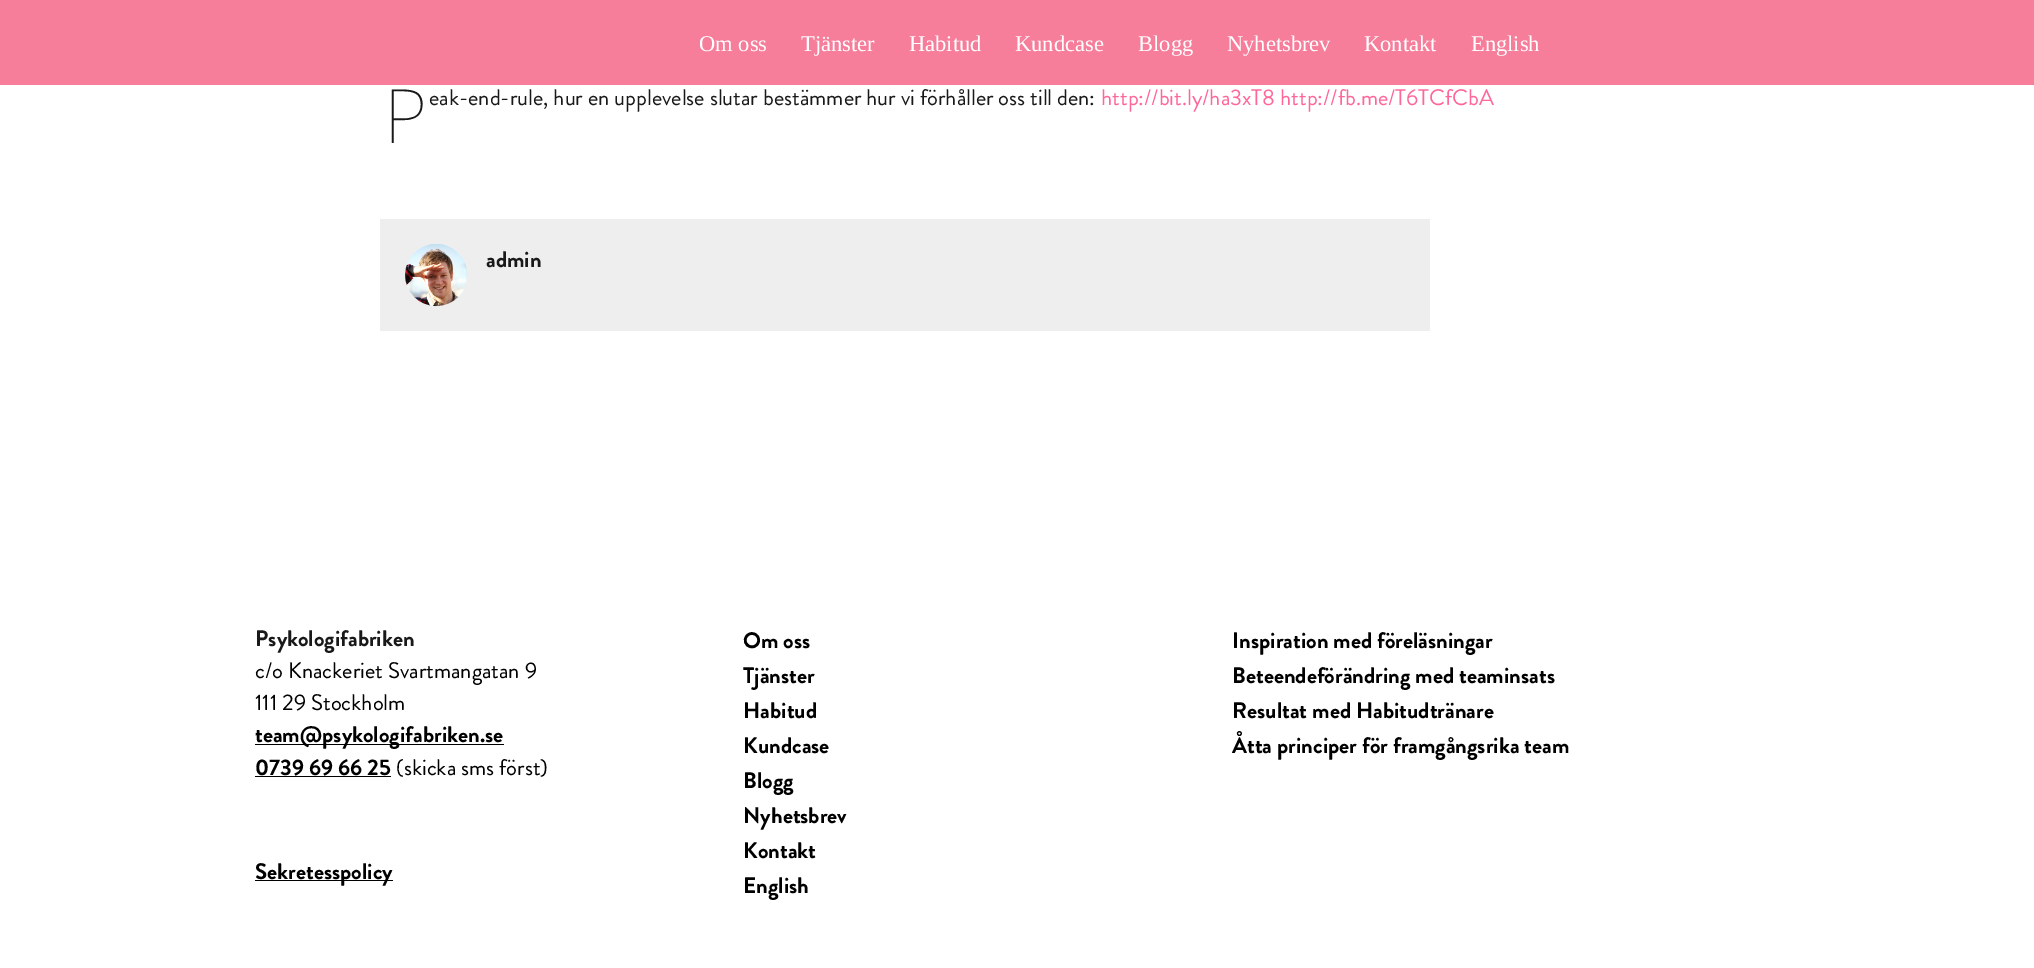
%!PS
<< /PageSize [2034 968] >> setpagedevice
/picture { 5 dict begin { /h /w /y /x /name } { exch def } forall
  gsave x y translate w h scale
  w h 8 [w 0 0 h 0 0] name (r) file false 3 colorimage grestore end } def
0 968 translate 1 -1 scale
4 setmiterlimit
1 setgray
0 0 2034 968 rectfill
0.965 0.494 0.608 setrgbcolor
0 0 2034 85 rectfill
/LiberationSerif-Regular [22.5 0 0 -22.5 0 0] selectfont
1 setgray
699 51 moveto (Om oss) show
801 51 moveto (Tjänster) show
909 51 moveto (Habitud) show
1015 51 moveto (Kundcase) show
1138 51 moveto (Blogg) show
1227 51 moveto (Nyhetsbrev) show
1364 51 moveto (Kontakt) show
1471 51 moveto (English) show
/NotoSans-Thin [75 0 0 -75 0 0] selectfont
0.098 setgray
384 143 moveto (P) show
/BrandonGrotesque-Regular [22.5 0 0 -22.5 0 0] selectfont
429 105 moveto (eak-end-rule, hur en upplevelse slutar bestämmer hur vi förhåller oss till den:) show
1 0.4 0.6 setrgbcolor
1101 105 moveto (http://bit.ly/ha3xT8 http://fb.me/T6TCfCbA) show
0.933 setgray
380 219 1050 112 rectfill
(img1.rgb) 405 244 63 63 picture
/BrandonGrotesque-Bold [22.5 0 0 -22.5 0 0] selectfont
0.098 setgray
486 267 moveto (admin) show
255 646 moveto (Psykologifabriken) show
/BrandonGrotesque-Regular [22.5 0 0 -22.5 0 0] selectfont
0 setgray
255 678 moveto (c/o Knackeriet Svartmangatan 9) show
255 710 moveto (111 29 Stockholm) show
255 744 249 1 rectfill
/BrandonGrotesque-Bold [22.5 0 0 -22.5 0 0] selectfont
255 742 moveto (team@psykologifabriken.se) show
255 775 moveto (0739 69 66 25) show
255 776 136 1 rectfill
/BrandonGrotesque-Regular [22.5 0 0 -22.5 0 0] selectfont
396 775 moveto (\(skicka sms först\)) show
255 880 138 1 rectfill
/BrandonGrotesque-Bold [22.5 0 0 -22.5 0 0] selectfont
255 879 moveto (Sekretesspolicy) show
743 648 moveto (Om oss) show
743 683 moveto (Tjänster) show
743 718 moveto (Habitud) show
743 753 moveto (Kundcase) show
743 788 moveto (Blogg) show
743 823 moveto (Nyhetsbrev) show
743 858 moveto (Kontakt) show
743 893 moveto (English) show
1232 648 moveto (Inspiration med föreläsningar) show
1232 683 moveto (Beteendeförändring med teaminsats) show
1232 718 moveto (Resultat med Habitudtränare) show
1232 753 moveto (Åtta principer för framgångsrika team) show
showpage
